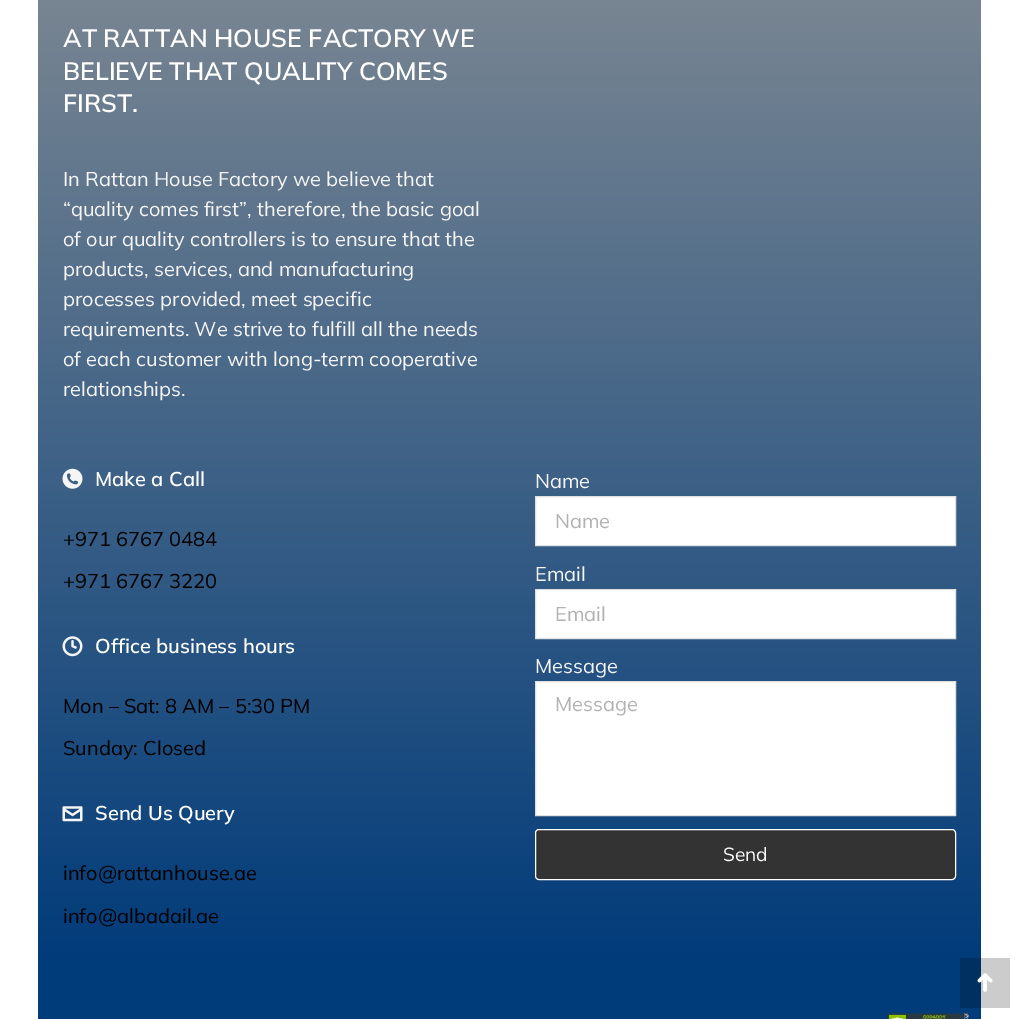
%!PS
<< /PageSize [1022 1019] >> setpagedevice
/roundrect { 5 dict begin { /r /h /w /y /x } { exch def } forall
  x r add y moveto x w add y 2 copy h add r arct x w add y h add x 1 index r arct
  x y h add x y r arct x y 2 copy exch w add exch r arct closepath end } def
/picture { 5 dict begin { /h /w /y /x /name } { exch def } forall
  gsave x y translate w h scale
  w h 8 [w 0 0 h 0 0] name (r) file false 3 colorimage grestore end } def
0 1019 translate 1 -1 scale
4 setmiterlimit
1 setgray
0 0 1022 1019 rectfill
0.8 setgray
981 958 29 50 rectfill
gsave newpath 38 0 moveto 981 0 lineto 981 968 lineto 38 968 lineto closepath clip newpath
<< /ShadingType 2 /ColorSpace /DeviceRGB /Coords [509 968 509 -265] /Extend [true true] /Function << /FunctionType 2 /Domain [0 1] /C0 [0 0.231 0.478] /C1 [0.6 0.6 0.6] /N 1 >> >> shfill grestore
gsave newpath 960 958 moveto 981 958 lineto 981 968 lineto 960 968 lineto closepath clip newpath
<< /ShadingType 2 /ColorSpace /DeviceRGB /Coords [509 968 509 -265] /Extend [true true] /Function << /FunctionType 2 /Domain [0 1] /C0 [0 0.184 0.384] /C1 [0.478 0.478 0.478] /N 1 >> >> shfill grestore
/Mulish-SemiBold [25 0 0 -25 0 0] selectfont
1 setgray
63 47 moveto (AT RATTAN HOUSE FACTORY WE) show
63 80 moveto (BELIEVE THAT QUALITY COMES) show
63 112 moveto (FIRST.) show
/Mulish-Regular [20 0 0 -20 0 0] selectfont
0.961 setgray
63 186 moveto (In Rattan House Factory we believe that) show
63 216 moveto (“quality comes first”, therefore, the basic goal) show
63 246 moveto (of our quality controllers is to ensure that the) show
63 276 moveto (products, services, and manufacturing) show
63 306 moveto (processes provided, meet specific) show
63 336 moveto (requirements. We strive to fulfill all the needs) show
63 366 moveto (of each customer with long-term cooperative) show
63 396 moveto (relationships.) show
(img1.rgb) 62 468 21 21 picture
/Mulish-SemiBold [20 0 0 -20 0 0] selectfont
1 setgray
95 486 moveto (Make a Call) show
/Mulish-Regular [20 0 0 -20 0 0] selectfont
0 setgray
63 546 moveto (+971 6767 0484) show
63 588 moveto (+971 6767 3220) show
(img2.rgb) 62 636 21 21 picture
/Mulish-SemiBold [20 0 0 -20 0 0] selectfont
1 setgray
95 653 moveto (Office business hours) show
/Mulish-Regular [20 0 0 -20 0 0] selectfont
0 setgray
63 713 moveto (Mon – Sat: 8 AM – 5:30 PM) show
63 755 moveto (Sunday: Closed) show
(img3.rgb) 62 806 21 16 picture
/Mulish-SemiBold [20 0 0 -20 0 0] selectfont
1 setgray
95 820 moveto (Send Us Query) show
/Mulish-Regular [20 0 0 -20 0 0] selectfont
0 setgray
63 880 moveto (info@rattanhouse.ae) show
63 923 moveto (info@albadail.ae) show
0.961 setgray
535 488 moveto (Name) show
1 setgray
newpath 535.5 496.5 moveto 955.5 496.5 lineto 955.5 545.5 lineto 535.5 545.5 lineto closepath gsave fill grestore
0.878 setgray
stroke
0.698 setgray
555 528 moveto (Name) show
0.961 setgray
535 581 moveto (Email) show
1 setgray
newpath 535.5 589.5 moveto 955.5 589.5 lineto 955.5 638.5 lineto 535.5 638.5 lineto closepath gsave fill grestore
0.878 setgray
stroke
0.698 setgray
555 621 moveto (Email) show
0.961 setgray
535 673 moveto (Message) show
1 setgray
newpath 535.5 681.5 moveto 955.5 681.5 lineto 955.5 815.5 lineto 535.5 815.5 lineto closepath gsave fill grestore
0.878 setgray
stroke
0.698 setgray
555 711 moveto (Message) show
0.2 setgray
535.5 829.5 420 50 3.5 roundrect gsave fill grestore
1 setgray
stroke
/Mulish-Regular [19 0 0 -19 0 0] selectfont
723 861 moveto (Send) show
0 0.231 0.478 setrgbcolor
38 968 943 51 rectfill
0 0.184 0.384 setrgbcolor
960 968 21 40 rectfill
(img4.rgb) 887 1013 82 6 picture
(img5.rgb) 977 973 16 19 picture
showpage
